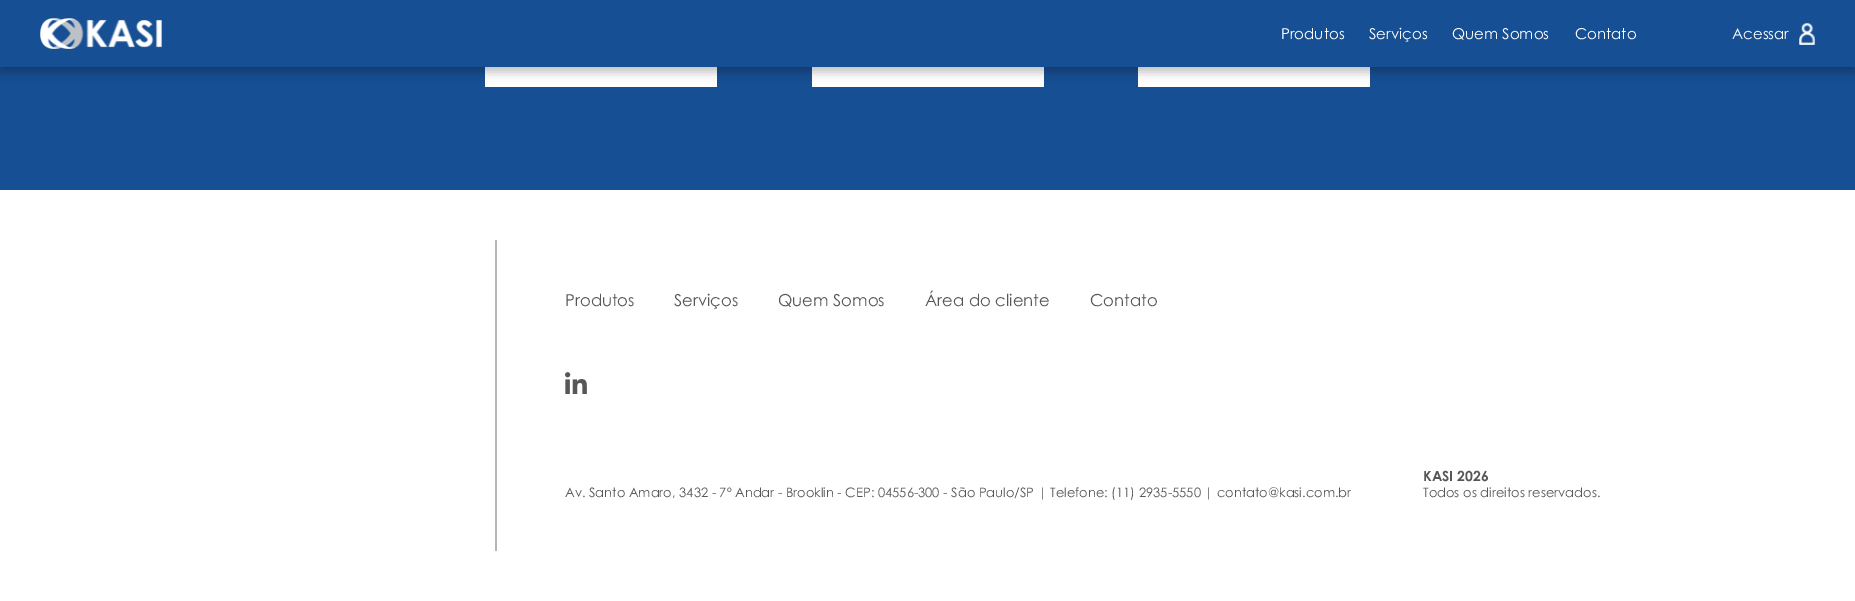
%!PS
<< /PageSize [1855 601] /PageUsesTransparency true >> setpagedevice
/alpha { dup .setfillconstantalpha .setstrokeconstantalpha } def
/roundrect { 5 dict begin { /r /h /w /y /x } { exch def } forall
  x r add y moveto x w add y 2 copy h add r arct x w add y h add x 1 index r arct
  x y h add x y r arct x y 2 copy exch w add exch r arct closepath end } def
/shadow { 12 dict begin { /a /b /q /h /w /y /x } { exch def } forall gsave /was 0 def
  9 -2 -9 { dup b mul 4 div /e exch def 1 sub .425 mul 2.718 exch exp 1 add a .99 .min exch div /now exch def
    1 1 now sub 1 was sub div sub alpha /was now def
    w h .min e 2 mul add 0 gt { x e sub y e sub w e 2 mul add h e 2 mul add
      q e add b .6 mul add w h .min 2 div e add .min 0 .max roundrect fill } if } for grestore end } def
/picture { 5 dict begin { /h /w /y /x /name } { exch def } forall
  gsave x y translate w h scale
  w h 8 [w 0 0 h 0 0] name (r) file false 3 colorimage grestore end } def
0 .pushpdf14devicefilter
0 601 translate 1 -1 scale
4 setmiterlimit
1 setgray
0 0 1855 601 rectfill
0.086 0.31 0.576 setrgbcolor
0 67 1855 123 rectfill
1 setgray
485 67 232 20 rectfill
812 67 232 20 rectfill
1138 67 232 20 rectfill
0 setgray
0 5 1855 67 0 5 0.25 shadow
0.086 0.31 0.576 setrgbcolor
0 0 1855 67 rectfill
(img1.rgb) 40 18 122 31 picture
/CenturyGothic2-Regular [15 0 0 -15 0 0] selectfont
1 setgray
1281 39 moveto (Produtos) show
1369 39 moveto (Serviços) show
1452 39 moveto (Quem Somos) show
1575 39 moveto (Contato) show
1732 39 moveto (Acessar) show
(img2.rgb) 1799 23 16 22 picture
0.714 setgray
495 240 2 311 rectfill
/CenturyGothic-Regular [16.5 0 0 -16.5 0 0] selectfont
0.341 0.341 0.337 setrgbcolor
565 306 moveto (Produtos) show
674 306 moveto (Serviços) show
778 306 moveto (Quem Somos) show
925 306 moveto (Área do cliente) show
1090 306 moveto (Contato) show
(img3.rgb) 565 372 22 22 picture
/CenturyGothic-Regular [13 0 0 -13 0 0] selectfont
565 497 moveto (Av. Santo Amaro, 3432 - 7º Andar - Brooklin - CEP: 04556-300 - São Paulo/SP | Telefone: \(11\) 2935-5550 | contato@kasi.com.br) show
/CenturyGothic-Bold [14 0 0 -14 0 0] selectfont
1423 481 moveto (KASI 2026) show
/CenturyGothic-Regular [13 0 0 -13 0 0] selectfont
1423 497 moveto (Todos os direitos reservados.) show
.poppdf14devicefilter showpage
